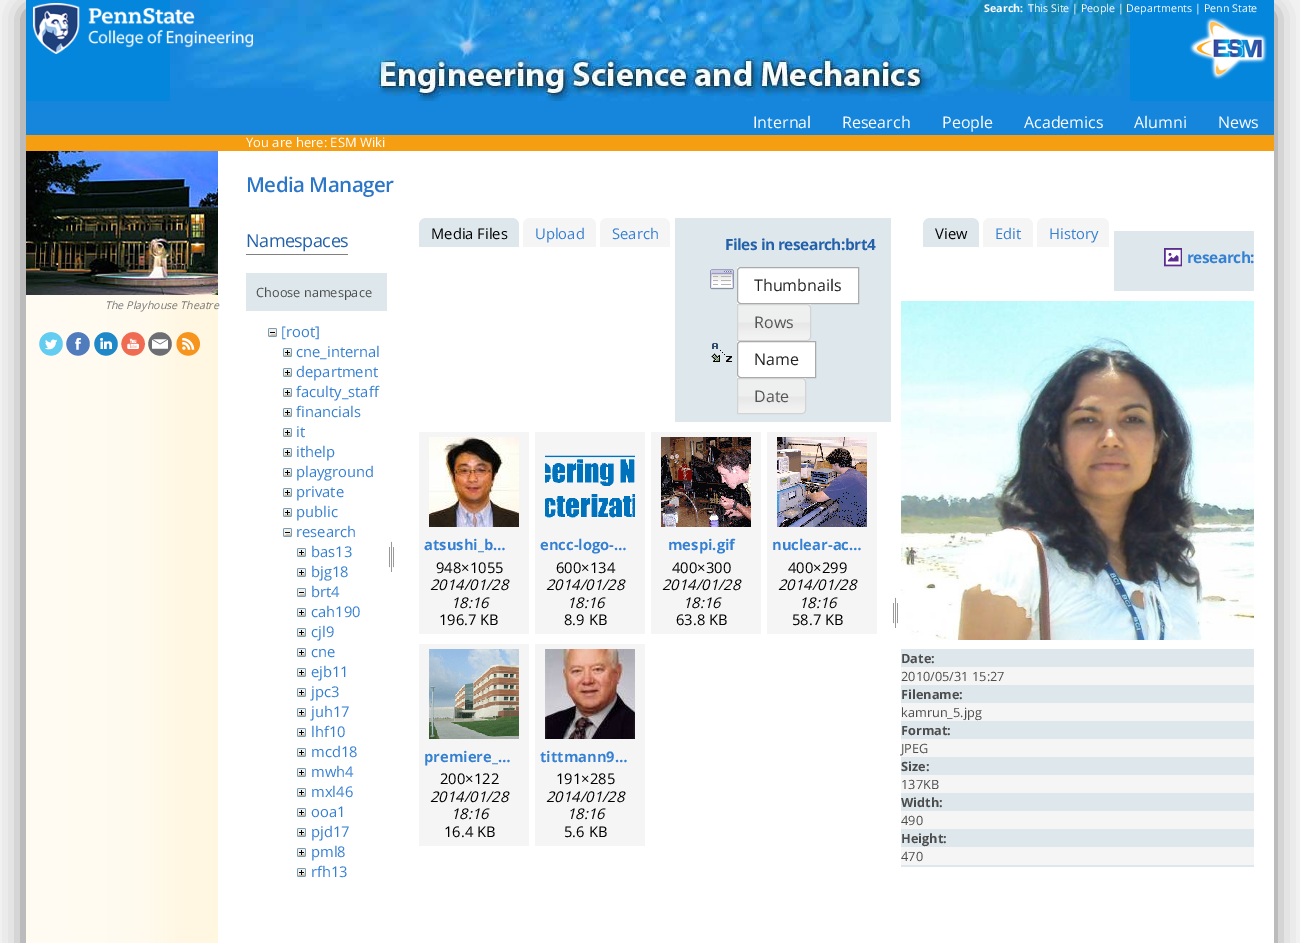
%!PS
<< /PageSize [1300 943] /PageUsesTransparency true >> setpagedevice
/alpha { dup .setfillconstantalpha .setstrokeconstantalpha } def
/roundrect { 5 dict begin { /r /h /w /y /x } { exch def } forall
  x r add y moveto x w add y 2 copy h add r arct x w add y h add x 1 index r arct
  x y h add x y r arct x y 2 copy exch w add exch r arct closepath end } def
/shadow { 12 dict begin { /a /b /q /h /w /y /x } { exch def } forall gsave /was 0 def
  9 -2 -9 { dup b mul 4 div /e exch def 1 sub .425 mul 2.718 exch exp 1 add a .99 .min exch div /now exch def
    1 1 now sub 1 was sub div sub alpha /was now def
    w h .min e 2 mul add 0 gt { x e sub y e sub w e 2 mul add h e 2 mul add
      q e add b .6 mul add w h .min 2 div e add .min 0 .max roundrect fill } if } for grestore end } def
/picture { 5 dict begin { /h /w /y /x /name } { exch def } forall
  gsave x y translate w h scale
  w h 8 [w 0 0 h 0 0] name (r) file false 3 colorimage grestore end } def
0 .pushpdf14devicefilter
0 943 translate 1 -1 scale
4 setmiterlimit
0.945 setgray
0 0 1300 943 rectfill
0 setgray
29 14 1240 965 0 12 0.75 shadow
1 setgray
218 151 1056 792 rectfill
0.016 0.525 0.867 setrgbcolor
26 0 1248 101 rectfill
(img2.rgb) 170 0 960 101 picture
(img1.rgb) 33 3 220 51 picture
(img3.rgb) 1189 17 78 63 picture
/OpenSans-Bold [10.7 0 0 -10.7 0 0] selectfont
1 setgray
984 12 moveto (Search:) show
/OpenSans-Regular [10.7 0 0 -10.7 0 0] selectfont
1028 12 moveto (This Site | People | Departments | Penn State) show
0.086 0.525 0.863 setrgbcolor
26 101 1248 34 rectfill
/OpenSans-Regular [16 0 0 -16 0 0] selectfont
1 setgray
753 128 moveto (Internal) show
842 128 moveto (Research) show
942 128 moveto (People) show
1024 128 moveto (Academics) show
1134 128 moveto (Alumni) show
1218 128 moveto (News) show
0.965 0.62 0.071 setrgbcolor
26 135 1248 16 rectfill
/OpenSans-Regular [13 0 0 -13 0 0] selectfont
1 setgray
246 147 moveto (You are here: ESM Wiki) show
(img4.rgb) 26 295 192 648 picture
(img5.rgb) 26 151 192 144 picture
/OpenSans-Italic [10.7 0 0 -10.7 0 0] selectfont
0.467 setgray
105 309 moveto (The Playhouse Theatre) show
(img6.rgb) 39 332 24 24 picture
(img7.rgb) 66 332 24 24 picture
(img8.rgb) 94 332 24 24 picture
(img9.rgb) 121 332 24 24 picture
(img10.rgb) 148 332 24 24 picture
(img11.rgb) 176 332 24 24 picture
/OpenSans-SemiBold [20.5 0 0 -20.5 0 0] selectfont
0.173 0.463 0.78 setrgbcolor
246 192 moveto -0.5 0 (Media Manager) ashow
0.502 setgray
246 254 102 1 rectfill
/OpenSans-Regular [18 0 0 -18 0 0] selectfont
0.141 0.38 0.667 setrgbcolor
246 247 moveto -0.5 0 (Namespaces) ashow
0.871 0.906 0.925 setrgbcolor
246 273 141 38 rectfill
/OpenSans-Regular [12.75 0 0 -12.75 0 0] selectfont
0.298 setgray
256 297 moveto (Choose namespace) show
(img12.rgb) 268 328 9 9 picture
/OpenSans-Regular [14.75 0 0 -14.75 0 0] selectfont
0.208 0.502 0.82 setrgbcolor
281 337 moveto ([root]) show
(img13.rgb) 283 348 9 9 picture
296 357 moveto (cne_internal) show
(img13.rgb) 283 368 9 9 picture
296 377 moveto (department) show
(img13.rgb) 283 388 9 9 picture
296 397 moveto (faculty_staff) show
(img13.rgb) 283 408 9 9 picture
296 417 moveto (financials) show
(img13.rgb) 283 428 9 9 picture
296 437 moveto (it) show
(img13.rgb) 283 448 9 9 picture
296 457 moveto (ithelp) show
(img13.rgb) 283 468 9 9 picture
296 477 moveto (playground) show
(img13.rgb) 283 488 9 9 picture
296 497 moveto (private) show
(img13.rgb) 283 508 9 9 picture
296 517 moveto (public) show
(img12.rgb) 283 528 9 9 picture
296 537 moveto (research) show
(img13.rgb) 297 548 9 9 picture
311 557 moveto (bas13) show
(img13.rgb) 297 568 9 9 picture
311 577 moveto (bjg18) show
(img12.rgb) 297 588 9 9 picture
311 597 moveto (brt4) show
(img13.rgb) 297 608 9 9 picture
311 617 moveto (cah190) show
(img13.rgb) 297 628 9 9 picture
311 637 moveto (cjl9) show
(img13.rgb) 297 648 9 9 picture
311 657 moveto (cne) show
(img13.rgb) 297 668 9 9 picture
311 677 moveto (ejb11) show
(img13.rgb) 297 688 9 9 picture
311 697 moveto (jpc3) show
(img13.rgb) 297 708 9 9 picture
311 717 moveto (juh17) show
(img13.rgb) 297 728 9 9 picture
311 737 moveto (lhf10) show
(img13.rgb) 297 748 9 9 picture
311 757 moveto (mcd18) show
(img13.rgb) 297 768 9 9 picture
311 777 moveto (mwh4) show
(img13.rgb) 297 788 9 9 picture
311 797 moveto (mxl46) show
(img13.rgb) 297 808 9 9 picture
311 817 moveto (ooa1) show
(img13.rgb) 297 828 9 9 picture
311 837 moveto (pjd17) show
(img13.rgb) 297 848 9 9 picture
311 857 moveto (pml8) show
(img13.rgb) 297 868 9 9 picture
311 877 moveto (rfh13) show
(img14.rgb) 389 541 5 31 picture
0.871 0.906 0.925 setrgbcolor
newpath 426 218 moveto 512 218 lineto 516 218 519 221 519 225 curveto 519 247 lineto 419 247 lineto 419 225 lineto 419 221 422 218 426 218 curveto closepath fill
0 setgray
431 239 moveto (Media Files) show
0.961 setgray
newpath 530 218 moveto 589 218 lineto 593 218 596 221 596 225 curveto 596 247 lineto 523 247 lineto 523 225 lineto 523 221 526 218 530 218 curveto closepath fill
0.208 0.502 0.82 setrgbcolor
535 239 moveto (Upload) show
0.961 setgray
newpath 607 218 moveto 663 218 lineto 667 218 670 221 670 225 curveto 670 247 lineto 600 247 lineto 600 225 lineto 600 221 603 218 607 218 curveto closepath fill
0.208 0.502 0.82 setrgbcolor
612 239 moveto (Search) show
0.871 0.906 0.925 setrgbcolor
675 218 216 204 rectfill
/OpenSans-Bold [15.4 0 0 -15.4 0 0] selectfont
0.141 0.38 0.667 setrgbcolor
725 250 moveto -0.5 0 (Files in research:brt4) ashow
(img15.rgb) 710 269 24 21 picture
1 setgray
737 267 121 37 rectfill
0.667 setgray
newpath 741 267.5 moveto 858.5 267.5 lineto 858.5 303.5 lineto 741 303.5 lineto 739 303.5 737.5 302 737.5 300 curveto 737.5 271 lineto 737.5 269 739 267.5 741 267.5 curveto closepath stroke
/OpenSans-Regular [16 0 0 -16 0 0] selectfont
0.129 setgray
754 291 moveto (Thumbnails) show
(img16.rgb) 738 304 73 37 picture
0.827 setgray
newpath 737.5 304.5 moveto 807 304.5 lineto 809 304.5 810.5 306 810.5 308 curveto 810.5 337 lineto 810.5 339 809 340.5 807 340.5 curveto 737.5 340.5 lineto closepath stroke
0.333 setgray
754 328 moveto (Rows) show
(img17.rgb) 711 343 21 19 picture
1 setgray
737 341 78 37 rectfill
0.667 setgray
newpath 741 341.5 moveto 815.5 341.5 lineto 815.5 377.5 lineto 741 377.5 lineto 739 377.5 737.5 376 737.5 374 curveto 737.5 345 lineto 737.5 343 739 341.5 741 341.5 curveto closepath stroke
0.129 setgray
754 365 moveto (Name) show
(img18.rgb) 738 378 68 36 picture
0.827 setgray
newpath 737.5 378.5 moveto 802 378.5 lineto 804 378.5 805.5 380 805.5 382 curveto 805.5 410 lineto 805.5 412 804 413.5 802 413.5 curveto 737.5 413.5 lineto closepath stroke
0.333 setgray
754 402 moveto (Date) show
0.961 setgray
419 432 110 202 rectfill
(img19.rgb) 429 437 90 90 picture
/OpenSans-Bold [14.75 0 0 -14.75 0 0] selectfont
0.208 0.502 0.82 setrgbcolor
424 550 moveto (atsushi_b…) show
/OpenSans-Regular [14.75 0 0 -14.75 0 0] selectfont
0 setgray
436 573 moveto (948×1055) show
/OpenSans-Italic [14.75 0 0 -14.75 0 0] selectfont
430 590 moveto (2014/01/28) show
451 608 moveto (18:16) show
/OpenSans-Regular [14.75 0 0 -14.75 0 0] selectfont
439 625 moveto (196.7 KB) show
0.961 setgray
535 432 110 202 rectfill
(img20.rgb) 545 455 90 63 picture
/OpenSans-Bold [14.75 0 0 -14.75 0 0] selectfont
0.208 0.502 0.82 setrgbcolor
540 550 moveto (encc-logo-…) show
/OpenSans-Regular [14.75 0 0 -14.75 0 0] selectfont
0 setgray
556 573 moveto (600×134) show
/OpenSans-Italic [14.75 0 0 -14.75 0 0] selectfont
546 590 moveto (2014/01/28) show
567 608 moveto (18:16) show
/OpenSans-Regular [14.75 0 0 -14.75 0 0] selectfont
564 625 moveto (8.9 KB) show
0.961 setgray
651 432 110 202 rectfill
(img21.rgb) 661 437 90 90 picture
/OpenSans-Bold [14.75 0 0 -14.75 0 0] selectfont
0.208 0.502 0.82 setrgbcolor
668 550 moveto (mespi.gif) show
/OpenSans-Regular [14.75 0 0 -14.75 0 0] selectfont
0 setgray
672 573 moveto (400×300) show
/OpenSans-Italic [14.75 0 0 -14.75 0 0] selectfont
662 590 moveto (2014/01/28) show
683 608 moveto (18:16) show
/OpenSans-Regular [14.75 0 0 -14.75 0 0] selectfont
676 625 moveto (63.8 KB) show
0.961 setgray
767 432 110 202 rectfill
(img22.rgb) 777 437 90 90 picture
/OpenSans-Bold [14.75 0 0 -14.75 0 0] selectfont
0.208 0.502 0.82 setrgbcolor
772 550 moveto (nuclear-ac…) show
/OpenSans-Regular [14.75 0 0 -14.75 0 0] selectfont
0 setgray
788 573 moveto (400×299) show
/OpenSans-Italic [14.75 0 0 -14.75 0 0] selectfont
778 590 moveto (2014/01/28) show
799 608 moveto (18:16) show
/OpenSans-Regular [14.75 0 0 -14.75 0 0] selectfont
792 625 moveto (58.7 KB) show
0.961 setgray
419 644 110 202 rectfill
(img23.rgb) 429 649 90 90 picture
/OpenSans-Bold [14.75 0 0 -14.75 0 0] selectfont
0.208 0.502 0.82 setrgbcolor
424 762 moveto (premiere_…) show
/OpenSans-Regular [14.75 0 0 -14.75 0 0] selectfont
0 setgray
440 784 moveto (200×122) show
/OpenSans-Italic [14.75 0 0 -14.75 0 0] selectfont
430 802 moveto (2014/01/28) show
451 819 moveto (18:16) show
/OpenSans-Regular [14.75 0 0 -14.75 0 0] selectfont
444 837 moveto (16.4 KB) show
0.961 setgray
535 644 110 202 rectfill
(img24.rgb) 545 649 90 90 picture
/OpenSans-Bold [14.75 0 0 -14.75 0 0] selectfont
0.208 0.502 0.82 setrgbcolor
540 762 moveto (tittmann9…) show
/OpenSans-Regular [14.75 0 0 -14.75 0 0] selectfont
0 setgray
556 784 moveto (191×285) show
/OpenSans-Italic [14.75 0 0 -14.75 0 0] selectfont
546 802 moveto (2014/01/28) show
567 819 moveto (18:16) show
/OpenSans-Regular [14.75 0 0 -14.75 0 0] selectfont
564 837 moveto (5.6 KB) show
(img14.rgb) 893 597 5 31 picture
0.871 0.906 0.925 setrgbcolor
newpath 930 218 moveto 972 218 lineto 976 218 979 221 979 225 curveto 979 247 lineto 923 247 lineto 923 225 lineto 923 221 926 218 930 218 curveto closepath fill
0 setgray
935 239 moveto (View) show
0.961 setgray
newpath 990 218 moveto 1026 218 lineto 1030 218 1033 221 1033 225 curveto 1033 247 lineto 983 247 lineto 983 225 lineto 983 221 986 218 990 218 curveto closepath fill
0.208 0.502 0.82 setrgbcolor
995 239 moveto (Edit) show
0.961 setgray
newpath 1044 218 moveto 1102 218 lineto 1106 218 1109 221 1109 225 curveto 1109 247 lineto 1037 247 lineto 1037 225 lineto 1037 221 1040 218 1044 218 curveto closepath fill
0.208 0.502 0.82 setrgbcolor
1049 239 moveto (History) show
0.871 0.906 0.925 setrgbcolor
1114 231 140 60 rectfill
(img25.rgb) 1164 248 18 19 picture
/OpenSans-Bold [15.4 0 0 -15.4 0 0] selectfont
0.208 0.502 0.82 setrgbcolor
1187 263 moveto -0.5 0 (research:) ashow
(img26.rgb) 901 301 353 339 picture
0.871 0.906 0.925 setrgbcolor
901 649 353 18 rectfill
/OpenSans-Bold [12.75 0 0 -12.75 0 0] selectfont
0.298 setgray
901 663 moveto (Date:) show
0.961 setgray
901 667 353 18 rectfill
/OpenSans-Regular [12.75 0 0 -12.75 0 0] selectfont
0.298 setgray
901 681 moveto (2010/05/31 15:27) show
0.871 0.906 0.925 setrgbcolor
901 685 353 18 rectfill
/OpenSans-Bold [12.75 0 0 -12.75 0 0] selectfont
0.298 setgray
901 699 moveto (Filename:) show
0.961 setgray
901 703 353 18 rectfill
/OpenSans-Regular [12.75 0 0 -12.75 0 0] selectfont
0.298 setgray
901 717 moveto (kamrun_5.jpg) show
0.871 0.906 0.925 setrgbcolor
901 721 353 18 rectfill
/OpenSans-Bold [12.75 0 0 -12.75 0 0] selectfont
0.298 setgray
901 735 moveto (Format:) show
0.961 setgray
901 739 353 18 rectfill
/OpenSans-Regular [12.75 0 0 -12.75 0 0] selectfont
0.298 setgray
901 753 moveto (JPEG) show
0.871 0.906 0.925 setrgbcolor
901 757 353 18 rectfill
/OpenSans-Bold [12.75 0 0 -12.75 0 0] selectfont
0.298 setgray
901 771 moveto (Size:) show
0.961 setgray
901 775 353 18 rectfill
/OpenSans-Regular [12.75 0 0 -12.75 0 0] selectfont
0.298 setgray
901 789 moveto (137KB) show
0.871 0.906 0.925 setrgbcolor
901 793 353 18 rectfill
/OpenSans-Bold [12.75 0 0 -12.75 0 0] selectfont
0.298 setgray
901 807 moveto (Width:) show
0.961 setgray
901 811 353 18 rectfill
/OpenSans-Regular [12.75 0 0 -12.75 0 0] selectfont
0.298 setgray
901 825 moveto (490) show
0.871 0.906 0.925 setrgbcolor
901 829 353 18 rectfill
/OpenSans-Bold [12.75 0 0 -12.75 0 0] selectfont
0.298 setgray
901 843 moveto (Height:) show
0.961 setgray
901 847 353 18 rectfill
/OpenSans-Regular [12.75 0 0 -12.75 0 0] selectfont
0.298 setgray
901 861 moveto (470) show
0.871 0.906 0.925 setrgbcolor
901 865 353 2 rectfill
.poppdf14devicefilter showpage
